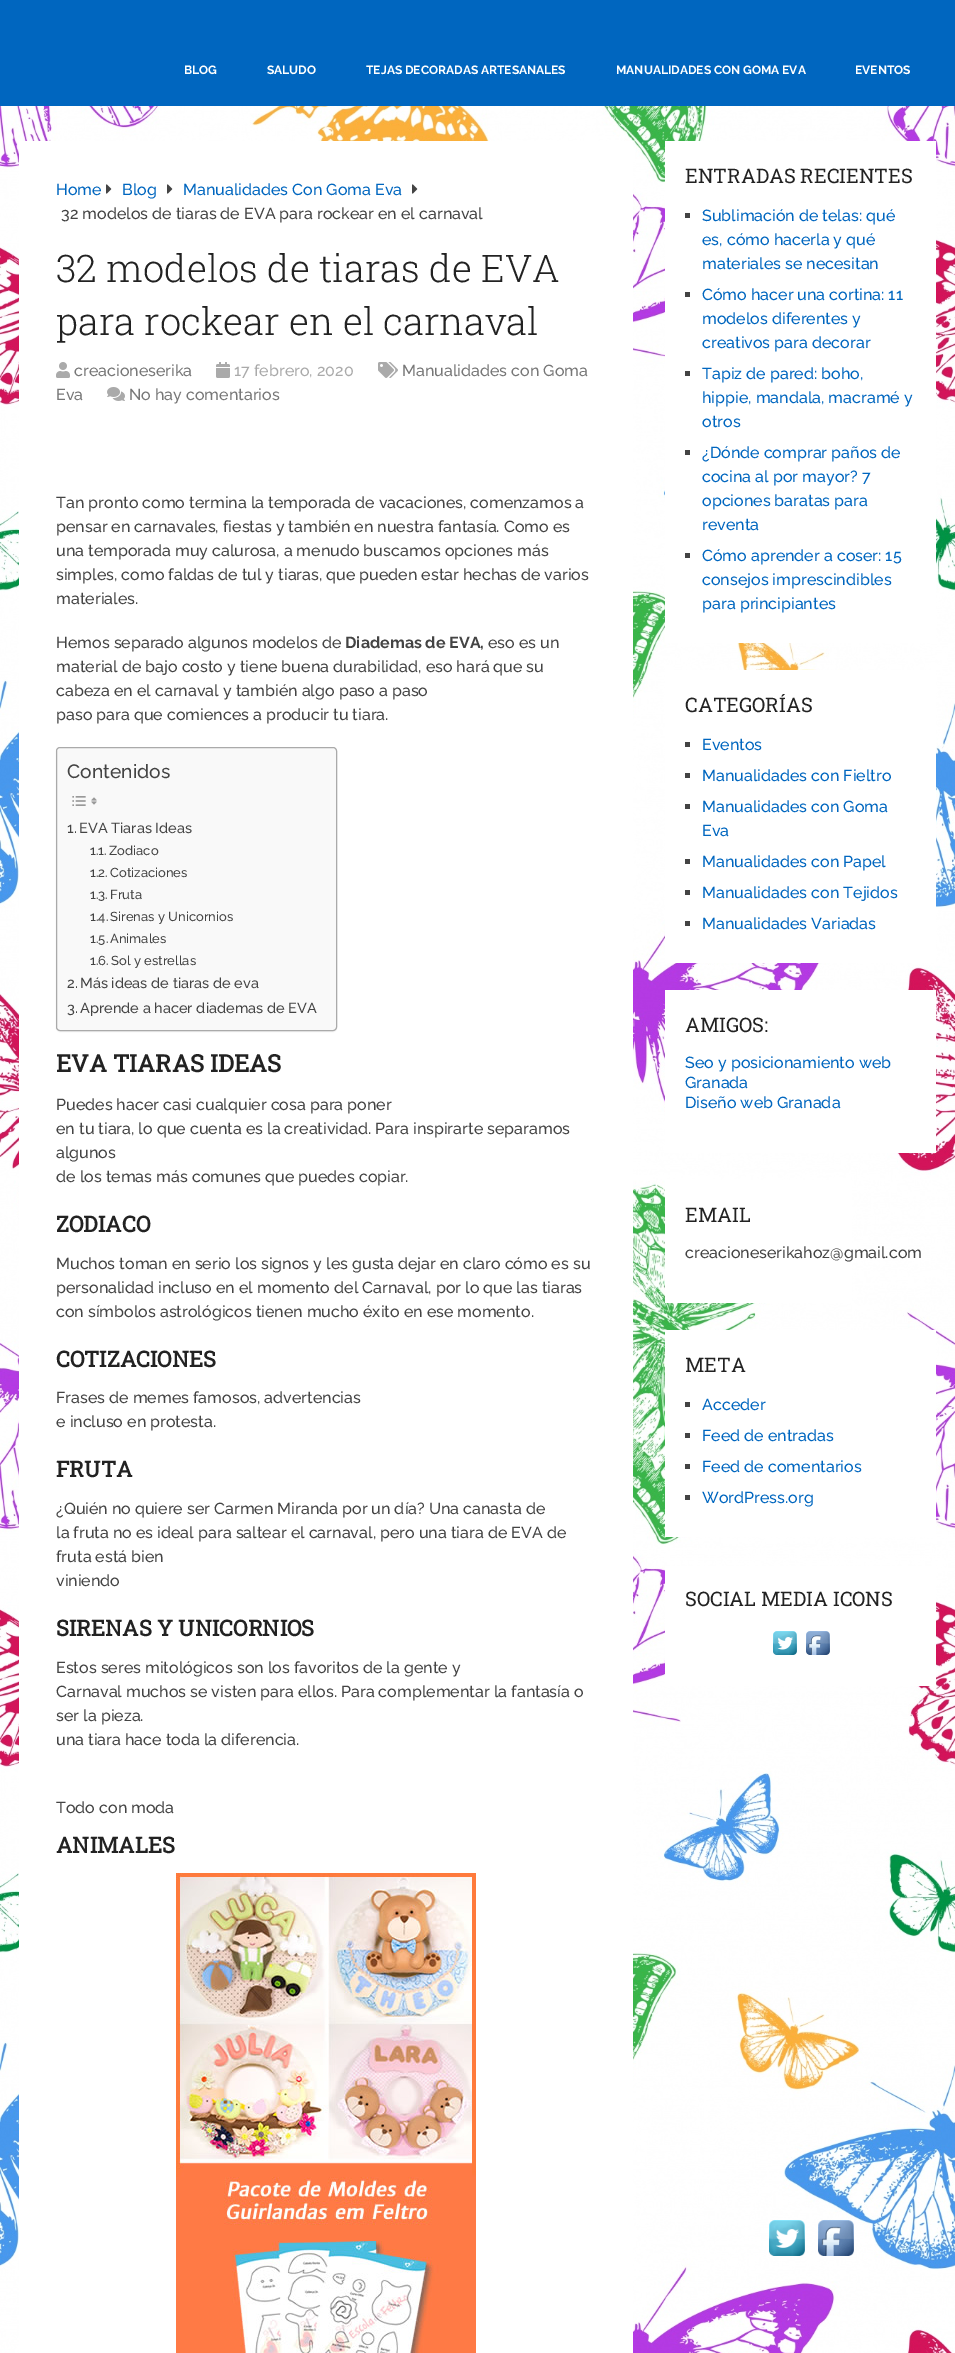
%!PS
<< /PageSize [955 2353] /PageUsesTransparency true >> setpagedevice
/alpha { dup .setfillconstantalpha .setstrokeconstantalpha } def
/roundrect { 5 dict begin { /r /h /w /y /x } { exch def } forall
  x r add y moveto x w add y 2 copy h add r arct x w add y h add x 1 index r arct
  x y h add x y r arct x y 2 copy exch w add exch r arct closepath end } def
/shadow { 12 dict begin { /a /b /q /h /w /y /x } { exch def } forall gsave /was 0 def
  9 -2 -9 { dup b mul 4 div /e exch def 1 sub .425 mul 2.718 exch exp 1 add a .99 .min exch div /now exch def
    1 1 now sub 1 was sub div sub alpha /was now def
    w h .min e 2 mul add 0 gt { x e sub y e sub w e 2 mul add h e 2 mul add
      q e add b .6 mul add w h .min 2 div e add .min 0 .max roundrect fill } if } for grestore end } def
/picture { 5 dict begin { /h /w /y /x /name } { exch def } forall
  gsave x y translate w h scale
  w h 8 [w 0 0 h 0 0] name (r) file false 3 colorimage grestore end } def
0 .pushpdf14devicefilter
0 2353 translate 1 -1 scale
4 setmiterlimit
1 setgray
0 0 955 2353 rectfill
(img1.rgb) 0 106 955 2247 picture
0 0.4 0.749 setrgbcolor
0 0 955 106 rectfill
/Raleway-Bold [12 0 0 -12 0 0] selectfont
1 setgray
184 74 moveto (BLOG) show
267 74 moveto (SALUDO) show
366 74 moveto (TEJAS DECORADAS ARTESANALES) show
616 74 moveto (MANUALIDADES CON GOMA EVA) show
855 74 moveto (EVENTOS) show
19 141 614 2212 rectfill
/Raleway-Medium [16 0 0 -16 0 0] selectfont
0 0.4 0.749 setrgbcolor
56 195 moveto (Home) show
(img2.rgb) 106 184 6 10 picture
122 195 moveto (Blog) show
(img2.rgb) 167 184 6 10 picture
183 195 moveto (Manualidades Con Goma Eva) show
(img2.rgb) 412 184 6 10 picture
0.267 setgray
61 219 moveto (32 modelos de tiaras de EVA para rockear en el carnaval) show
/RobotoSlab-Light [38 0 0 -38 0 0] selectfont
0.133 setgray
56 282 moveto (32 modelos de tiaras de EVA) show
56 335 moveto (para rockear en el carnaval) show
(img3.rgb) 378 362 20 16 picture
/Raleway-Medium [16 0 0 -16 0 0] selectfont
0.467 setgray
402 376 moveto (Manualidades con Goma) show
56 400 moveto (Eva) show
(img4.rgb) 56 362 14 16 picture
74 376 moveto (creacioneserika) show
(img5.rgb) 216 362 14 16 picture
0.667 setgray
234 376 moveto (17 febrero, 2020) show
(img6.rgb) 107 387 18 14 picture
0.467 setgray
129 400 moveto (No hay comentarios) show
0.267 setgray
56 508 moveto (Tan pronto como termina la temporada de vacaciones, comenzamos a) show
56 532 moveto (pensar en carnavales, fiestas y también en nuestra fantasía. Como es) show
56 556 moveto (una temporada muy calurosa, a menudo buscamos opciones más) show
56 580 moveto (simples, como faldas de tul y tiaras, que pueden estar hechas de varios) show
56 604 moveto (materiales.) show
56 648 moveto (Hemos separado algunos modelos de) show
/Raleway-Bold [16 0 0 -16 0 0] selectfont
345 648 moveto (Diademas de EVA,) show
/Raleway-Medium [16 0 0 -16 0 0] selectfont
488 648 moveto (eso es un) show
56 672 moveto (material de bajo costo y tiene buena durabilidad, eso hará que su) show
56 696 moveto (cabeza en el carnaval y también algo paso a paso) show
56 720 moveto (paso para que comiences a producir tu tiara.) show
0 setgray
56 748 281 284 4 0.5 0.05 shadow
0.976 setgray
56.5 747.5 280 283 3.5 roundrect gsave fill grestore
0.667 setgray
stroke
/Raleway-Medium [19.25 0 0 -19.25 0 0] selectfont
0.267 setgray
67 778 moveto (Contenidos) show
(img7.rgb) 72 796 14 10 picture
(img8.rgb) 91 797 6 8 picture
/Raleway-Medium [14.5 0 0 -14.5 0 0] selectfont
67 833 moveto (1.) show
79 833 moveto (EVA Tiaras Ideas) show
/Raleway-Medium [13 0 0 -13 0 0] selectfont
90 855 moveto (1.1.) show
109 855 moveto (Zodiaco) show
90 877 moveto (1.2.) show
110 877 moveto (Cotizaciones) show
90 899 moveto (1.3.) show
110 899 moveto (Fruta) show
90 921 moveto (1.4.) show
110 921 moveto (Sirenas y Unicornios) show
90 943 moveto (1.5.) show
110 943 moveto (Animales) show
90 965 moveto (1.6.) show
111 965 moveto (Sol y estrellas) show
/Raleway-Medium [14.5 0 0 -14.5 0 0] selectfont
67 988 moveto (2.) show
80 988 moveto (Más ideas de tiaras de eva) show
67 1013 moveto (3.) show
80 1013 moveto (Aprende a hacer diademas de EVA) show
/RobotoSlab-Bold [24 0 0 -24 0 0] selectfont
0.133 setgray
56 1072 moveto (EVA TIARAS IDEAS) show
/Raleway-Medium [16 0 0 -16 0 0] selectfont
0.267 setgray
56 1110 moveto (Puedes hacer casi cualquier cosa para poner) show
56 1134 moveto (en tu tiara, lo que cuenta es la creatividad. Para inspirarte separamos) show
56 1158 moveto (algunos) show
56 1182 moveto (de los temas más comunes que puedes copiar.) show
/RobotoSlab-Bold [22 0 0 -22 0 0] selectfont
0.133 setgray
56 1232 moveto (ZODIACO) show
/Raleway-Medium [16 0 0 -16 0 0] selectfont
0.267 setgray
56 1269 moveto (Muchos toman en serio los signos y les gusta dejar en claro cómo es su) show
56 1293 moveto (personalidad incluso en el momento del Carnaval, por lo que las tiaras) show
56 1317 moveto (con símbolos astrológicos tienen mucho éxito en ese momento.) show
/RobotoSlab-Bold [22 0 0 -22 0 0] selectfont
0.133 setgray
56 1367 moveto (COTIZACIONES) show
/Raleway-Medium [16 0 0 -16 0 0] selectfont
0.267 setgray
56 1403 moveto (Frases de memes famosos, advertencias) show
56 1427 moveto (e incluso en protesta.) show
/RobotoSlab-Bold [22 0 0 -22 0 0] selectfont
0.133 setgray
56 1477 moveto (FRUTA) show
/Raleway-Medium [16 0 0 -16 0 0] selectfont
0.267 setgray
56 1514 moveto (¿Quién no quiere ser Carmen Miranda por un día? Una canasta de) show
56 1538 moveto (la fruta no es ideal para saltear el carnaval, pero una tiara de EVA de) show
56 1562 moveto (fruta está bien) show
56 1586 moveto (viniendo) show
/RobotoSlab-Bold [22 0 0 -22 0 0] selectfont
0.133 setgray
56 1636 moveto (SIRENAS Y UNICORNIOS) show
/Raleway-Medium [16 0 0 -16 0 0] selectfont
0.267 setgray
56 1673 moveto (Estos seres mitológicos son los favoritos de la gente y) show
56 1697 moveto (Carnaval muchos se visten para ellos. Para complementar la fantasía o) show
56 1721 moveto (ser la pieza.) show
56 1745 moveto (una tiara hace toda la diferencia.) show
56 1813 moveto (Todo con moda) show
/RobotoSlab-Bold [22 0 0 -22 0 0] selectfont
0.133 setgray
56 1853 moveto (ANIMALES) show
(img9.rgb) 176 1873 300 480 picture
1 setgray
665 141 271 502 rectfill
/RobotoSlab-Regular [20 0 0 -20 0 0] selectfont
0.133 setgray
685 183 moveto (ENTRADAS RECIENTES) show
0.267 setgray
685 213 5 5 rectfill
/Raleway-Medium [16 0 0 -16 0 0] selectfont
0 0.4 0.749 setrgbcolor
702 221 moveto (Sublimación de telas: qué) show
702 245 moveto (es, cómo hacerla y qué) show
702 269 moveto (materiales se necesitan) show
0.267 setgray
685 292 5 5 rectfill
0 0.4 0.749 setrgbcolor
702 300 moveto (Cómo hacer una cortina: 11) show
702 324 moveto (modelos diferentes y) show
702 348 moveto (creativos para decorar) show
0.267 setgray
685 371 5 5 rectfill
0 0.4 0.749 setrgbcolor
702 379 moveto (Tapiz de pared: boho,) show
702 403 moveto (hippie, mandala, macramé y) show
702 427 moveto (otros) show
0.267 setgray
685 450 5 5 rectfill
0 0.4 0.749 setrgbcolor
702 458 moveto (¿Dónde comprar paños de) show
702 482 moveto (cocina al por mayor? 7) show
702 506 moveto (opciones baratas para) show
702 530 moveto (reventa) show
0.267 setgray
685 553 5 5 rectfill
0 0.4 0.749 setrgbcolor
702 561 moveto (Cómo aprender a coser: 15) show
702 585 moveto (consejos imprescindibles) show
702 609 moveto (para principiantes) show
1 setgray
665 670 271 293 rectfill
/RobotoSlab-Regular [20 0 0 -20 0 0] selectfont
0.133 setgray
685 712 moveto (CATEGORÍAS) show
0.267 setgray
685 742 5 5 rectfill
/Raleway-Medium [16 0 0 -16 0 0] selectfont
0 0.4 0.749 setrgbcolor
702 750 moveto (Eventos) show
0.267 setgray
685 773 5 5 rectfill
0 0.4 0.749 setrgbcolor
702 781 moveto (Manualidades con Fieltro) show
0.267 setgray
685 804 5 5 rectfill
0 0.4 0.749 setrgbcolor
702 812 moveto (Manualidades con Goma) show
702 836 moveto (Eva) show
0.267 setgray
685 859 5 5 rectfill
0 0.4 0.749 setrgbcolor
702 867 moveto (Manualidades con Papel) show
0.267 setgray
685 890 5 5 rectfill
0 0.4 0.749 setrgbcolor
702 898 moveto (Manualidades con Tejidos) show
0.267 setgray
685 921 5 5 rectfill
0 0.4 0.749 setrgbcolor
702 929 moveto (Manualidades Variadas) show
1 setgray
665 990 271 163 rectfill
/RobotoSlab-Regular [20 0 0 -20 0 0] selectfont
0.133 setgray
685 1032 moveto (AMIGOS:) show
/Raleway-Medium [16 0 0 -16 0 0] selectfont
0 0.4 0.749 setrgbcolor
685 1068 moveto (Seo y posicionamiento web) show
685 1088 moveto (Granada) show
685 1108 moveto (Diseño web Granada) show
1 setgray
665 1180 187 123 rectfill
/RobotoSlab-Regular [20 0 0 -20 0 0] selectfont
0.133 setgray
685 1222 moveto (EMAIL) show
/Raleway-Medium [16 0 0 -16 0 0] selectfont
0.267 setgray
685 1258 moveto (creacioneserikahoz@gmail.com) show
1 setgray
665 1330 271 207 rectfill
/RobotoSlab-Regular [20 0 0 -20 0 0] selectfont
0.133 setgray
685 1372 moveto (META) show
0.267 setgray
685 1402 5 5 rectfill
/Raleway-Medium [16 0 0 -16 0 0] selectfont
0 0.4 0.749 setrgbcolor
702 1410 moveto (Acceder) show
0.267 setgray
685 1433 5 5 rectfill
0 0.4 0.749 setrgbcolor
702 1441 moveto (Feed de entradas) show
0.267 setgray
685 1464 5 5 rectfill
0 0.4 0.749 setrgbcolor
702 1472 moveto (Feed de comentarios) show
0.267 setgray
685 1495 5 5 rectfill
0 0.4 0.749 setrgbcolor
702 1503 moveto (WordPress.org) show
1 setgray
665 1566 271 120 rectfill
/RobotoSlab-Regular [20 0 0 -20 0 0] selectfont
0.133 setgray
685 1606 moveto (SOCIAL MEDIA ICONS) show
(img10.rgb) 773 1631 24 24 picture
(img11.rgb) 806 1631 24 24 picture
(img12.rgb) 769 2220 36 36 picture
(img13.rgb) 818 2220 36 36 picture
.poppdf14devicefilter showpage
